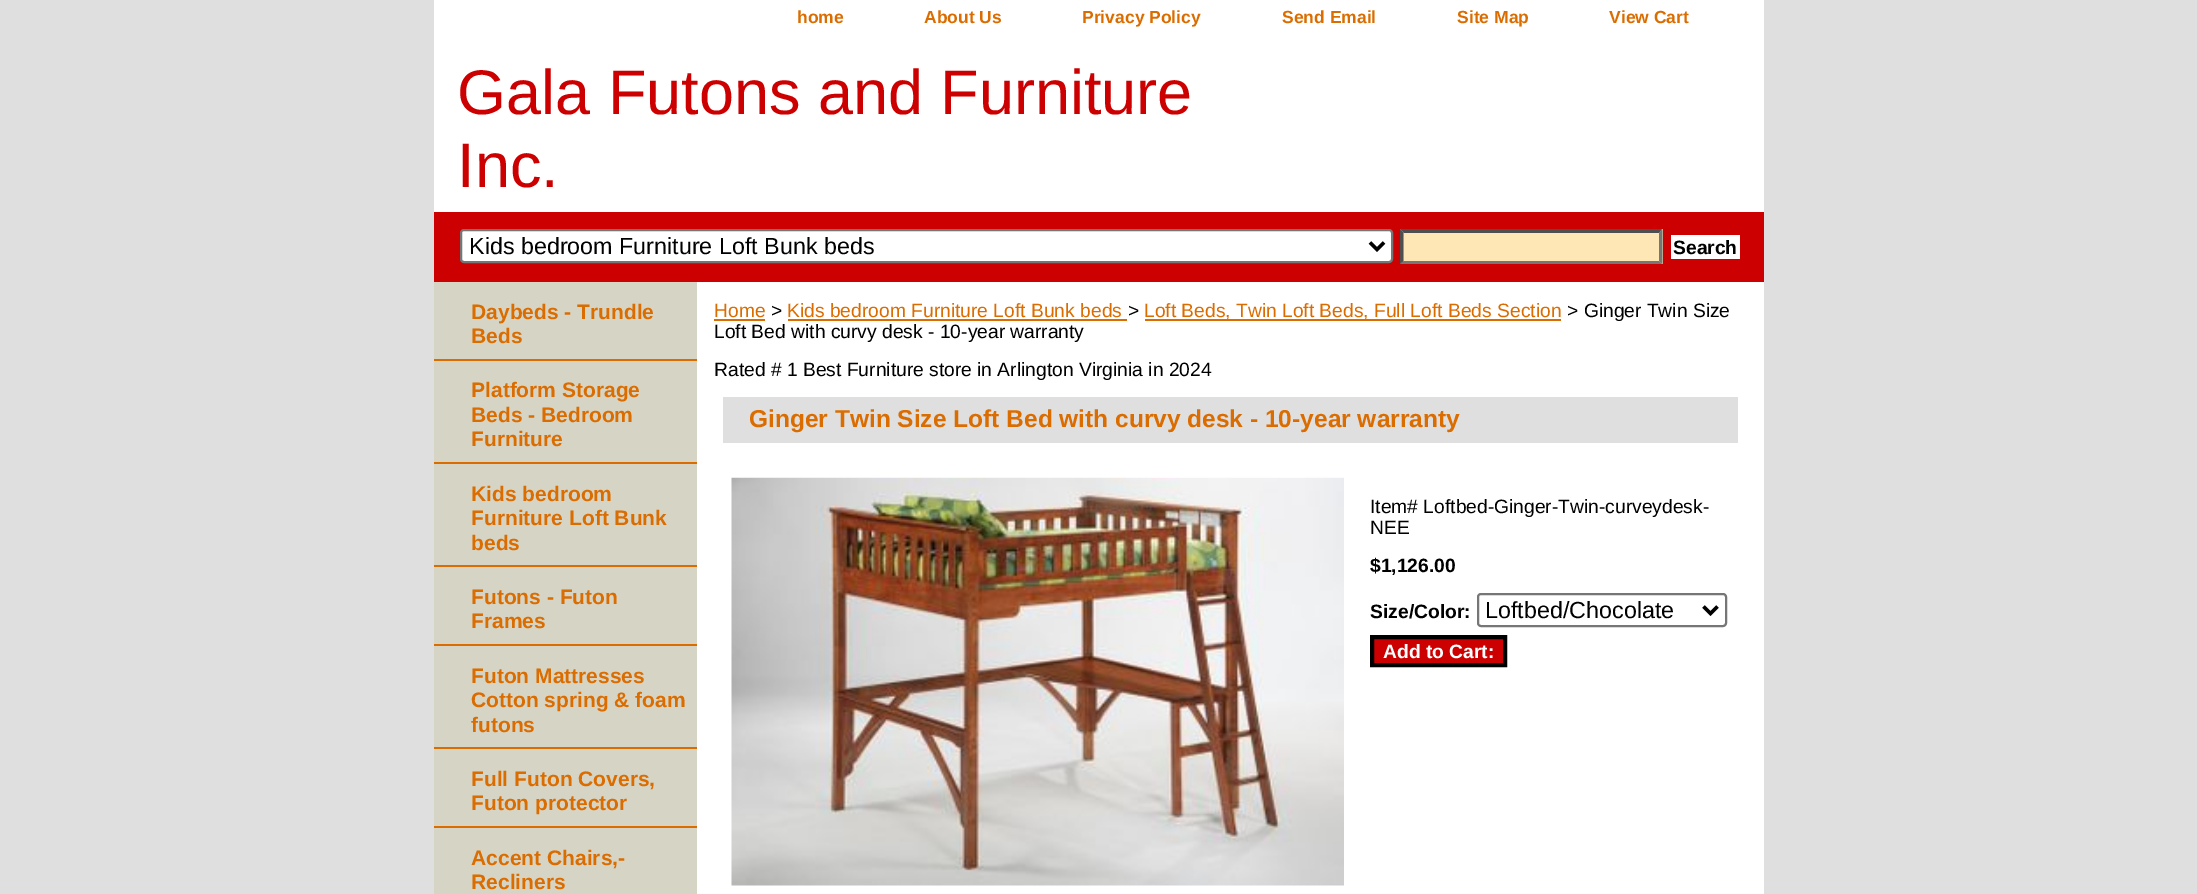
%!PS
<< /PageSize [2197 894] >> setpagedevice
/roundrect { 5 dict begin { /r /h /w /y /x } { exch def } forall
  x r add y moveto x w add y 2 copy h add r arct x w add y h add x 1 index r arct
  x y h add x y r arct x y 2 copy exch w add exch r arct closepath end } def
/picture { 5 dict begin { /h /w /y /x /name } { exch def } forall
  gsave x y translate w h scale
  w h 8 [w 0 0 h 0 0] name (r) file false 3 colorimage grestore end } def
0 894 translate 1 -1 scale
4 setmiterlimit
0.875 setgray
0 0 2197 894 rectfill
1 setgray
434 0 1330 212 rectfill
/LiberationSans-Bold [17.5 0 0 -17.5 0 0] selectfont
0.859 0.424 0 setrgbcolor
797 23 moveto (home) show
924 23 moveto (About Us) show
1082 23 moveto (Privacy Policy) show
1282 23 moveto (Send Email) show
1457 23 moveto (Site Map) show
1609 23 moveto (View Cart) show
/LiberationSans-Regular [63 0 0 -63 0 0] selectfont
0.8 0 0.004 setrgbcolor
457 114 moveto (Gala Futons and Furniture) show
457 187 moveto (Inc.) show
434 212 1330 70 rectfill
1 setgray
461 230 931 32 3 roundrect gsave fill grestore
0.463 setgray
2 setlinewidth
stroke
0 setgray
3.5 setlinewidth
newpath 1370 242.5 moveto 1377 249.5 lineto 1384 242.5 lineto stroke
/LiberationSans-Regular [23.3 0 0 -23.3 0 0] selectfont
469 254 moveto (Kids bedroom Furniture Loft Bunk beds) show
1 0.906 0.71 setrgbcolor
1400 229 263 35 rectfill
0.31 setgray
newpath 1400 229 moveto 1662 229 lineto 1659 233 lineto 1404 233 lineto closepath fill
0.463 setgray
newpath 1662.5 229 moveto 1662.5 264 lineto 1659 261 lineto 1659 233 lineto closepath fill
newpath 1662 264 moveto 1400 264 lineto 1404 261 lineto 1659 261 lineto closepath fill
0.31 setgray
newpath 1400 264 moveto 1400 229 lineto 1403.5 233 lineto 1403.5 261 lineto closepath fill
1 setgray
1671 235 69 24 rectfill
/LiberationSans-Bold [19.25 0 0 -19.25 0 0] selectfont
0 setgray
1673 254 moveto (Search) show
1 setgray
697 282 1067 612 rectfill
0.839 0.835 0.773 setrgbcolor
434 282 263 612 rectfill
0.859 0.424 0 setrgbcolor
434 359 263 2 rectfill
/LiberationSans-Bold [21 0 0 -21 0 0] selectfont
471 319 moveto (Daybeds - Trundle) show
471 343 moveto (Beds) show
434 462 263 2 rectfill
471 397 moveto (Platform Storage) show
471 422 moveto (Beds - Bedroom) show
471 446 moveto (Furniture) show
434 565 263 2 rectfill
471 501 moveto (Kids bedroom) show
471 525 moveto (Furniture Loft Bunk) show
471 550 moveto (beds) show
434 644 263 2 rectfill
471 604 moveto (Futons - Futon) show
471 628 moveto (Frames) show
434 747 263 2 rectfill
471 683 moveto (Futon Mattresses) show
471 707 moveto (Cotton spring & foam) show
471 732 moveto (futons) show
434 826 263 2 rectfill
471 786 moveto (Full Futon Covers,) show
471 810 moveto (Futon protector) show
471 865 moveto (Accent Chairs,-) show
471 889 moveto (Recliners) show
/LiberationSans-Regular [19.25 0 0 -19.25 0 0] selectfont
714 317 moveto (Home) show
714 319 51 2 rectfill
0 setgray
771 317 moveto (>) show
0.859 0.424 0 setrgbcolor
787 317 moveto (Kids bedroom Furniture Loft Bunk beds) show
788 319 339 2 rectfill
0 setgray
1128 317 moveto (>) show
0.859 0.424 0 setrgbcolor
1145 319 416 2 rectfill
1144 317 moveto (Loft Beds, Twin Loft Beds, Full Loft Beds Section) show
0 setgray
1567 317 moveto (> Ginger Twin Size) show
714 338 moveto (Loft Bed with curvy desk - 10-year warranty) show
714 376 moveto (Rated # 1 Best Furniture store in Arlington Virginia in 2024) show
0.875 setgray
723 397 1015 46 rectfill
/LiberationSans-Bold [24.5 0 0 -24.5 0 0] selectfont
0.859 0.424 0 setrgbcolor
749 427 moveto (Ginger Twin Size Loft Bed with curvy desk - 10-year warranty) show
(img1.rgb) 731 477 613 409 picture
/LiberationSans-Regular [19.25 0 0 -19.25 0 0] selectfont
0 setgray
1370 513 moveto (Item# Loftbed-Ginger-Twin-curveydesk-) show
1370 534 moveto (NEE) show
/LiberationSans-Bold [19.25 0 0 -19.25 0 0] selectfont
1370 572 moveto ($1,126.00) show
1370 618 moveto (Size/Color:) show
0.463 setgray
2 setlinewidth
1478 594 248 32 3 roundrect stroke
0 setgray
3.5 setlinewidth
newpath 1703.5 606.5 moveto 1710.5 613.5 lineto 1717.5 606.5 lineto stroke
/LiberationSans-Regular [23.3 0 0 -23.3 0 0] selectfont
1485 618 moveto (Loftbed/Chocolate) show
0.8 0 0.004 setrgbcolor
newpath 1372 637 moveto 1505 637 lineto 1505 665 lineto 1372 665 lineto closepath gsave fill grestore
0 setgray
4 setlinewidth
stroke
/LiberationSans-Bold [19.25 0 0 -19.25 0 0] selectfont
1 setgray
1383 658 moveto (Add to Cart:) show
showpage
